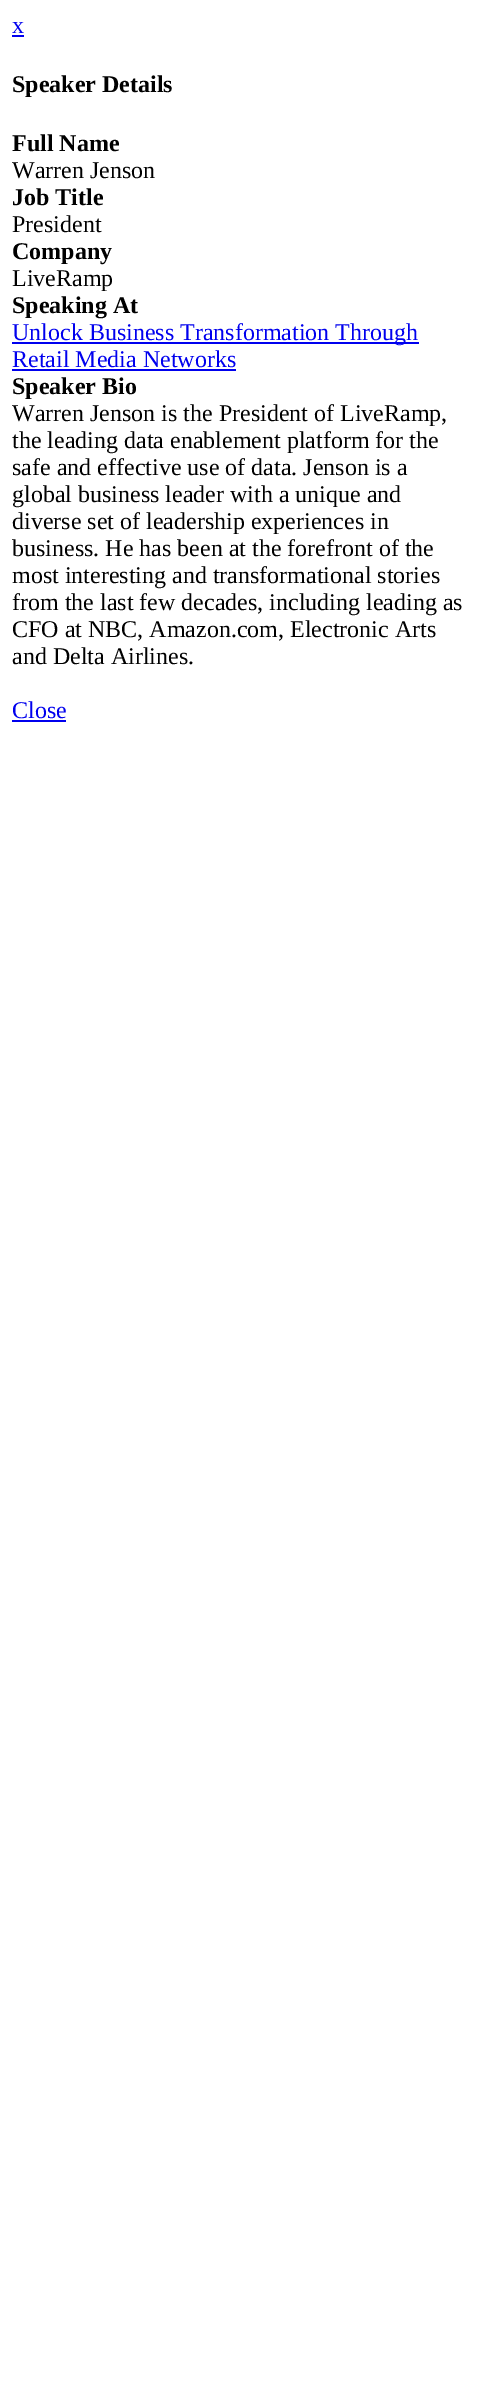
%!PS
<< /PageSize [482 2391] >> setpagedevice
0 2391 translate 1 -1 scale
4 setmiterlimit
1 setgray
0 0 482 2391 rectfill
/LiberationSerif-Regular [24 0 0 -24 0 0] selectfont
0 0 0.933 setrgbcolor
12 33 moveto (x) show
12 35 12 2 rectfill
/LiberationSerif-Bold [24 0 0 -24 0 0] selectfont
0 setgray
12 92 moveto (Speaker Details) show
12 151 moveto (Full Name) show
/LiberationSerif-Regular [24 0 0 -24 0 0] selectfont
12 178 moveto (Warren Jenson) show
/LiberationSerif-Bold [24 0 0 -24 0 0] selectfont
12 205 moveto (Job Title) show
/LiberationSerif-Regular [24 0 0 -24 0 0] selectfont
12 232 moveto (President) show
/LiberationSerif-Bold [24 0 0 -24 0 0] selectfont
12 259 moveto (Company) show
/LiberationSerif-Regular [24 0 0 -24 0 0] selectfont
12 286 moveto (LiveRamp) show
/LiberationSerif-Bold [24 0 0 -24 0 0] selectfont
12 313 moveto (Speaking At) show
0 0 0.933 setrgbcolor
12 342 407 2 rectfill
/LiberationSerif-Regular [24 0 0 -24 0 0] selectfont
12 340 moveto (Unlock Business Transformation Through) show
12 367 moveto (Retail Media Networks) show
12 369 224 2 rectfill
/LiberationSerif-Bold [24 0 0 -24 0 0] selectfont
0 setgray
12 394 moveto (Speaker Bio) show
/LiberationSerif-Regular [24 0 0 -24 0 0] selectfont
12 421 moveto (Warren Jenson is the President of LiveRamp,) show
12 448 moveto (the leading data enablement platform for the) show
12 475 moveto (safe and effective use of data. Jenson is a) show
12 502 moveto (global business leader with a unique and) show
12 529 moveto (diverse set of leadership experiences in) show
12 556 moveto (business. He has been at the forefront of the) show
12 583 moveto (most interesting and transformational stories) show
12 610 moveto (from the last few decades, including leading as) show
12 637 moveto (CFO at NBC, Amazon.com, Electronic Arts) show
12 664 moveto (and Delta Airlines.) show
0 0 0.933 setrgbcolor
12 718 moveto (Close) show
12 720 54 2 rectfill
showpage
